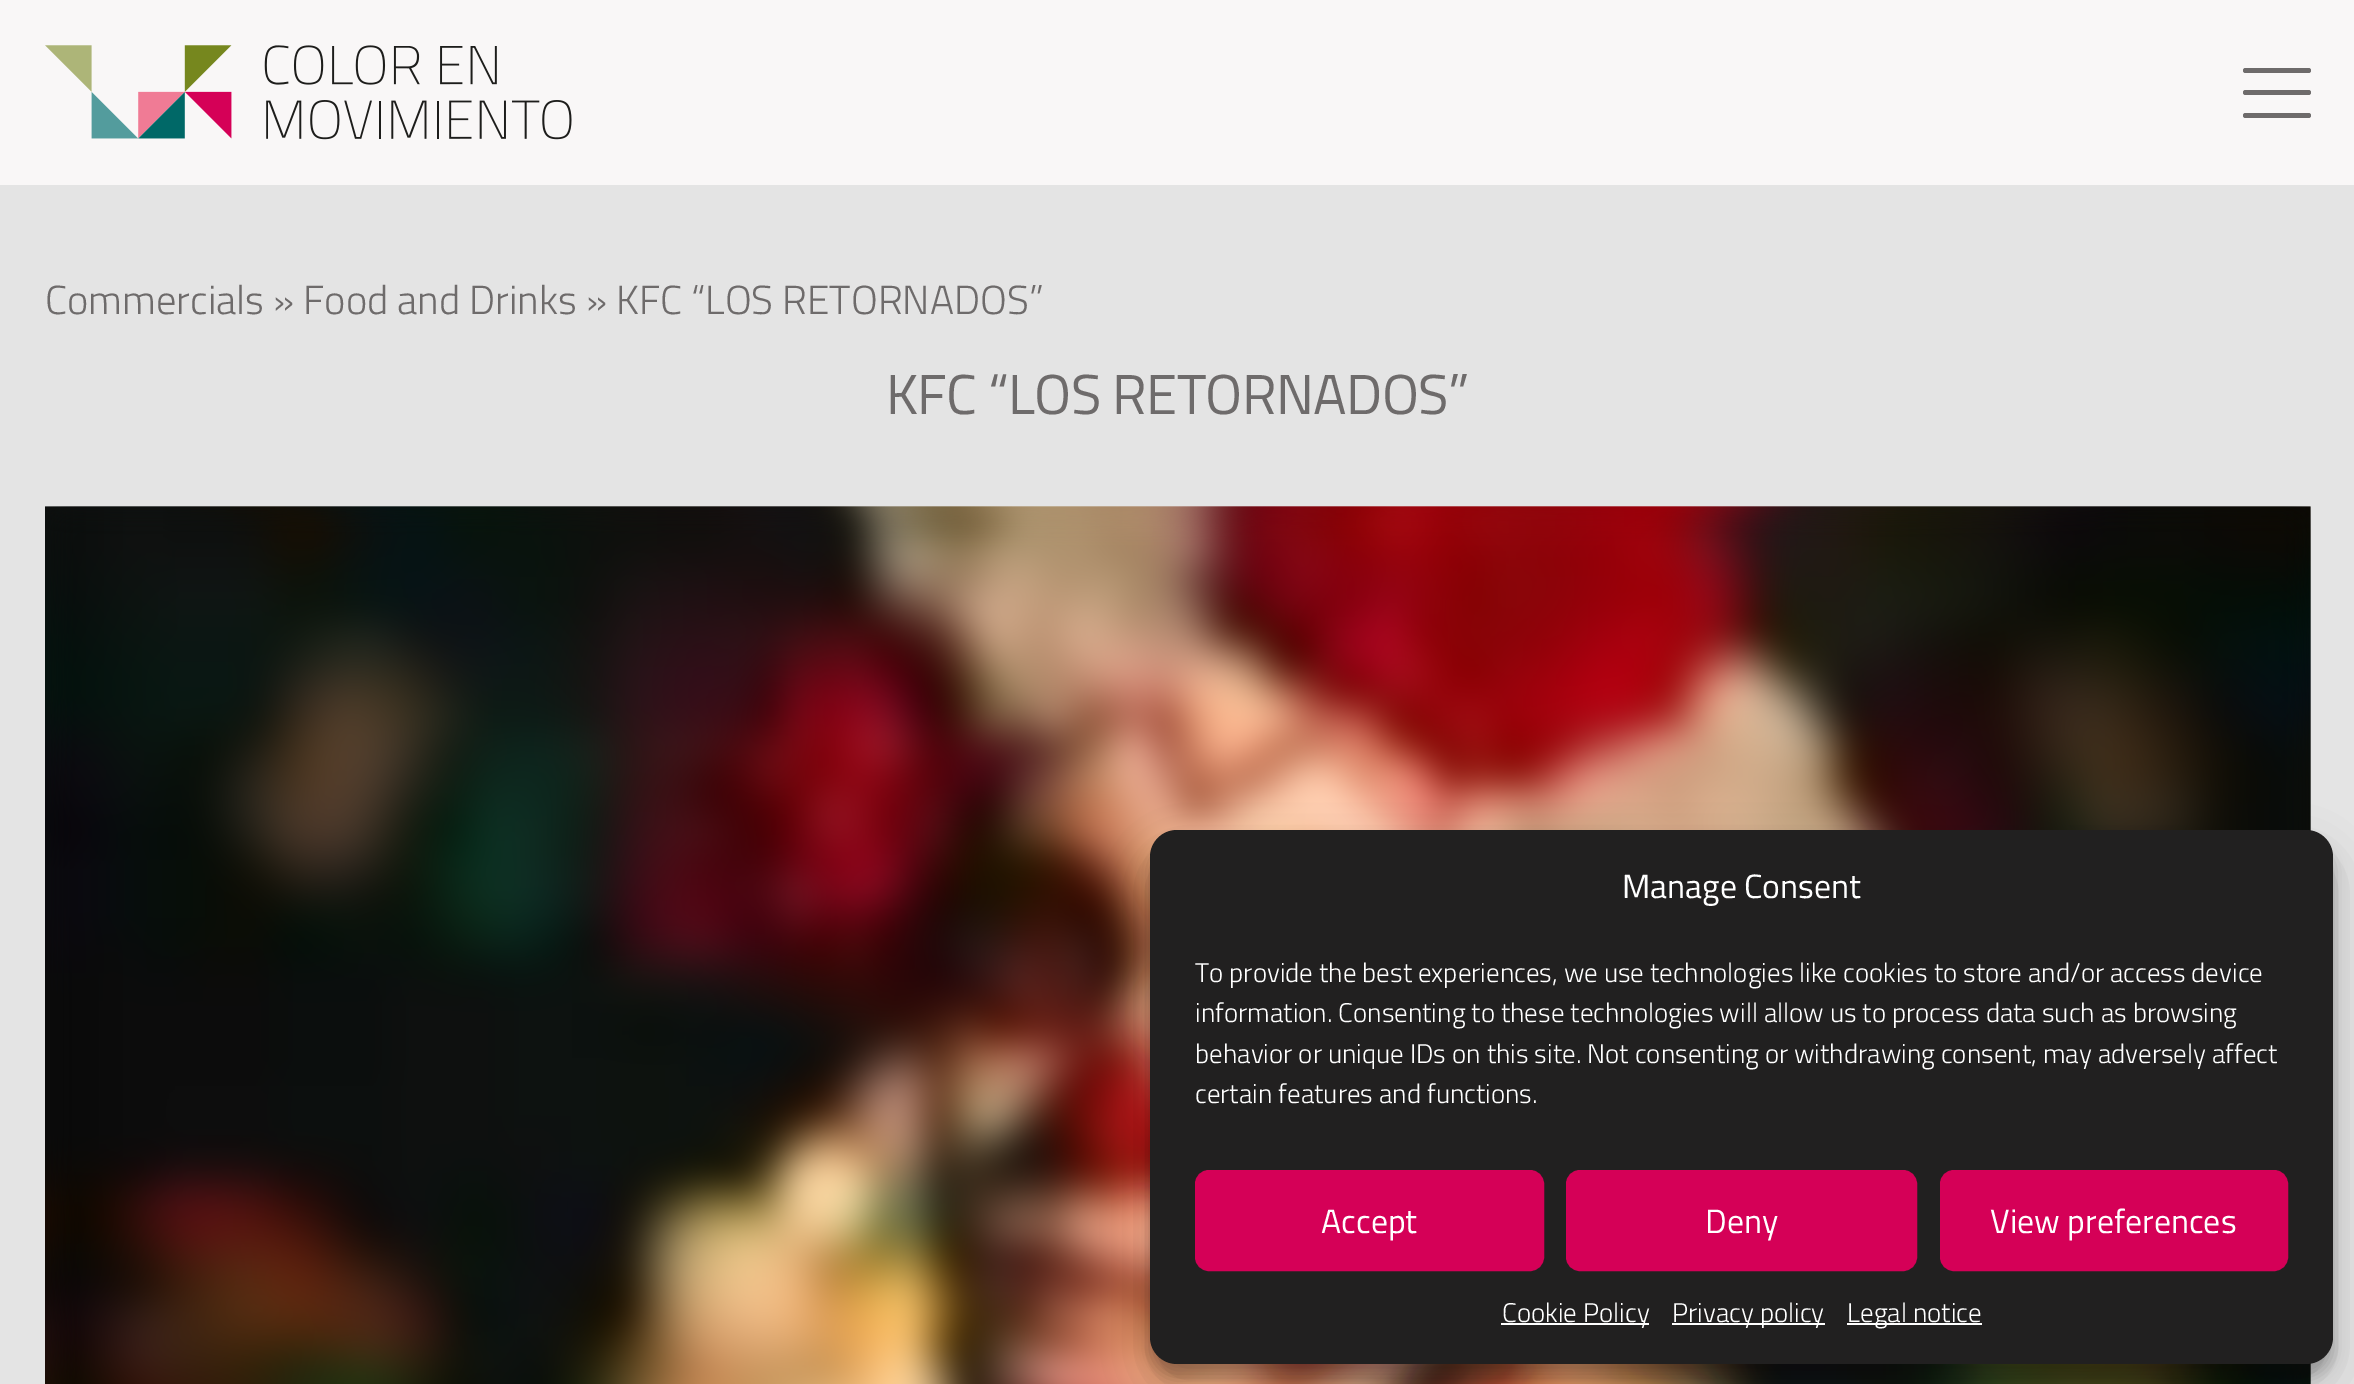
%!PS
<< /PageSize [2354 1384] /PageUsesTransparency true >> setpagedevice
/alpha { dup .setfillconstantalpha .setstrokeconstantalpha } def
/roundrect { 5 dict begin { /r /h /w /y /x } { exch def } forall
  x r add y moveto x w add y 2 copy h add r arct x w add y h add x 1 index r arct
  x y h add x y r arct x y 2 copy exch w add exch r arct closepath end } def
/shadow { 12 dict begin { /a /b /q /h /w /y /x } { exch def } forall gsave /was 0 def
  9 -2 -9 { dup b mul 4 div /e exch def 1 sub .425 mul 2.718 exch exp 1 add a .99 .min exch div /now exch def
    1 1 now sub 1 was sub div sub alpha /was now def
    w h .min e 2 mul add 0 gt { x e sub y e sub w e 2 mul add h e 2 mul add
      q e add b .6 mul add w h .min 2 div e add .min 0 .max roundrect fill } if } for grestore end } def
/picture { 5 dict begin { /h /w /y /x /name } { exch def } forall
  gsave x y translate w h scale
  w h 8 [w 0 0 h 0 0] name (r) file false 3 colorimage grestore end } def
0 .pushpdf14devicefilter
0 1384 translate 1 -1 scale
4 setmiterlimit
0.894 setgray
0 0 2354 1384 rectfill
0.976 0.969 0.969 setrgbcolor
0 0 2354 185 rectfill
(img1.rgb) 45 45 527 95 picture
0.431 0.42 0.42 setrgbcolor
2243 90 68 5 2.5 roundrect fill
2243 68 68 5 2.5 roundrect fill
2243 113 68 5 2.5 roundrect fill
/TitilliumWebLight-Light [40.5 0 0 -40.5 0 0] selectfont
45 314 moveto (Commercials » Food and Drinks » KFC “LOS RETORNADOS”) show
/TitilliumWeb-Regular [56.25 0 0 -56.25 0 0] selectfont
886 414 moveto -0.7 0 (KFC “LOS RETORNADOS”) ashow
(img2.rgb) 45 506 2266 878 picture
0 setgray
1150 844 1183 533 27 7 0.23 shadow
1150 853 1183 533 27 22.5 0.19 shadow
0.129 0.125 0.125 setrgbcolor
1150 830 1183 534 27 roundrect fill
/TitilliumWeb-Regular [33.75 0 0 -33.75 0 0] selectfont
1 setgray
1622 898 moveto (Manage Consent) show
/TitilliumWebLight-Light [27 0 0 -27 0 0] selectfont
1195 982 moveto (To provide the best experiences, we use technologies like cookies to store and/or access device) show
1195 1022 moveto (information. Consenting to these technologies will allow us to process data such as browsing) show
1195 1063 moveto (behavior or unique IDs on this site. Not consenting or withdrawing consent, may adversely affect) show
1195 1103 moveto (certain features and functions.) show
0.835 0 0.341 setrgbcolor
1196 1171 347 99 13 roundrect gsave fill grestore
2 setlinewidth
stroke
/TitilliumWeb-Regular [33.75 0 0 -33.75 0 0] selectfont
1 setgray
1321 1233 moveto (Accept) show
0.835 0 0.341 setrgbcolor
1567 1171 349 99 13 roundrect gsave fill grestore
stroke
1 setgray
1705 1233 moveto (Deny) show
0.835 0 0.341 setrgbcolor
1941 1171 346 99 13 roundrect gsave fill grestore
stroke
1 setgray
1990 1233 moveto (View preferences) show
1501 1323 148 2 rectfill
/TitilliumWebLight-Light [27 0 0 -27 0 0] selectfont
1502 1322 moveto (Cookie Policy) show
1672 1323 153 2 rectfill
1672 1322 moveto (Privacy policy) show
1847 1323 135 2 rectfill
1847 1322 moveto (Legal notice) show
.poppdf14devicefilter showpage
